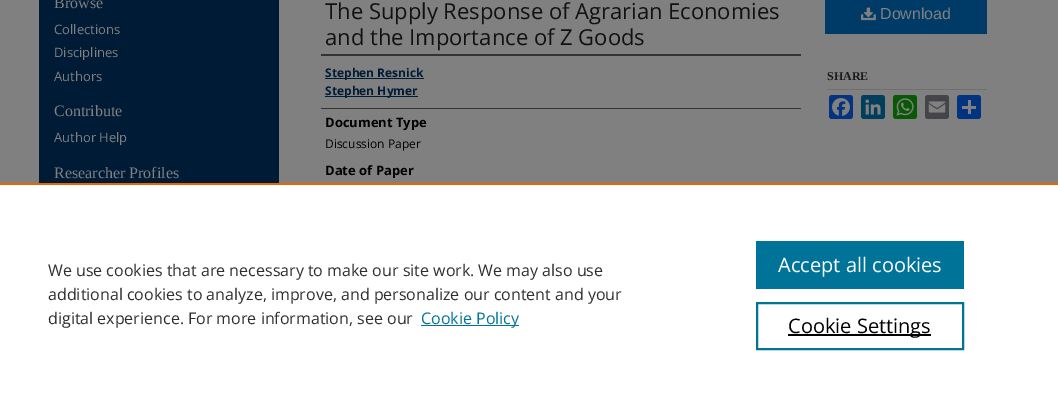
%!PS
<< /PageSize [1058 403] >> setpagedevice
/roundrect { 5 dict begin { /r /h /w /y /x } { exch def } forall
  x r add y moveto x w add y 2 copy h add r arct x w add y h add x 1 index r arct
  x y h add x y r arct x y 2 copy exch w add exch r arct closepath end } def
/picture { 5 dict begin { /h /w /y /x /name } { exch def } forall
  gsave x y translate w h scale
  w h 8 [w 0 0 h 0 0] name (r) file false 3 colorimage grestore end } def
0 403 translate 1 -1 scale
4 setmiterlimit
0.502 setgray
0 0 1058 403 rectfill
0 0.106 0.212 setrgbcolor
39 0 240 183 rectfill
/LiberationSerif-Regular [16 0 0 -16 0 0] selectfont
0.502 setgray
54 8 moveto (Browse) show
/OpenSans-Regular [13 0 0 -13 0 0] selectfont
54 34 moveto (Collections) show
54 57 moveto (Disciplines) show
54 81 moveto (Authors) show
/LiberationSerif-Regular [16 0 0 -16 0 0] selectfont
54 116 moveto (Contribute) show
/OpenSans-Regular [13 0 0 -13 0 0] selectfont
54 142 moveto (Author Help) show
/LiberationSerif-Regular [16 0 0 -16 0 0] selectfont
54 178 moveto (Researcher Profiles) show
/OpenSans-Regular [22 0 0 -22 0 0] selectfont
0.067 setgray
325 19 moveto (The Supply Response of Agrarian Economies) show
325 45 moveto (and the Importance of Z Goods) show
0.2 setgray
321 54 480 2 rectfill
321 108 480 1 rectfill
0 0.106 0.212 setrgbcolor
325 78 99 1 rectfill
/OpenSans-Bold [12 0 0 -12 0 0] selectfont
325 77 moveto (Stephen Resnick) show
325 96 93 1 rectfill
325 95 moveto (Stephen Hymer) show
/OpenSans-Bold [13 0 0 -13 0 0] selectfont
0 setgray
325 127 moveto (Document Type) show
/OpenSans-Regular [12 0 0 -12 0 0] selectfont
325 148 moveto (Discussion Paper) show
/OpenSans-Bold [13 0 0 -13 0 0] selectfont
325 175 moveto (Date of Paper) show
0 0.227 0.4 setrgbcolor
825 0 162 34 rectfill
(img1.rgb) 861 7 15 14 picture
/LiberationSans-Regular [16 0 0 -16 0 0] selectfont
0.502 setgray
880 19 moveto (Download) show
0.435 setgray
827 89 160 1 rectfill
/LiberationSerif-Bold [12 0 0 -12 0 0] selectfont
0.102 setgray
827 80 moveto (SHARE) show
0.016 0.2 0.502 setrgbcolor
829 95 24 24 3 roundrect fill
(img2.rgb) 832 98 18 18 picture
0 0.243 0.357 setrgbcolor
861 95 24 24 3 roundrect fill
(img3.rgb) 865 99 16 16 picture
0.035 0.345 0.02 setrgbcolor
893 95 24 24 3 roundrect fill
(img4.rgb) 896 98 18 18 picture
0.267 0.271 0.282 setrgbcolor
925 95 24 24 3 roundrect fill
(img5.rgb) 928 101 18 12 picture
0.004 0.2 0.502 setrgbcolor
957 95 24 24 3 roundrect fill
0.502 setgray
968 100 3 14 rectfill
962 106 14 3 rectfill
1 setgray
0 185 1058 218 rectfill
0.922 0.396 0 setrgbcolor
0 183 1058 2 rectfill
/OpenSans-Regular [16 0 0 -16 0 0] selectfont
0.18 setgray
48 276 moveto (We use cookies that are necessary to make our site work. We may also use) show
48 300 moveto (additional cookies to analyze, improve, and personalize our content and your) show
48 324 moveto (digital experience. For more information, see our) show
0 0.451 0.596 setrgbcolor
421 325 98 1 rectfill
421 324 moveto (Cookie Policy) show
756 241 208 48 rectfill
/OpenSans-Regular [20 0 0 -20 0 0] selectfont
1 setgray
778 272 moveto (Accept all cookies) show
0 0.451 0.596 setrgbcolor
2 setlinewidth
757 303 206 46 rectstroke
0 setgray
788 334 143 2 rectfill
788 333 moveto (Cookie Settings) show
showpage
